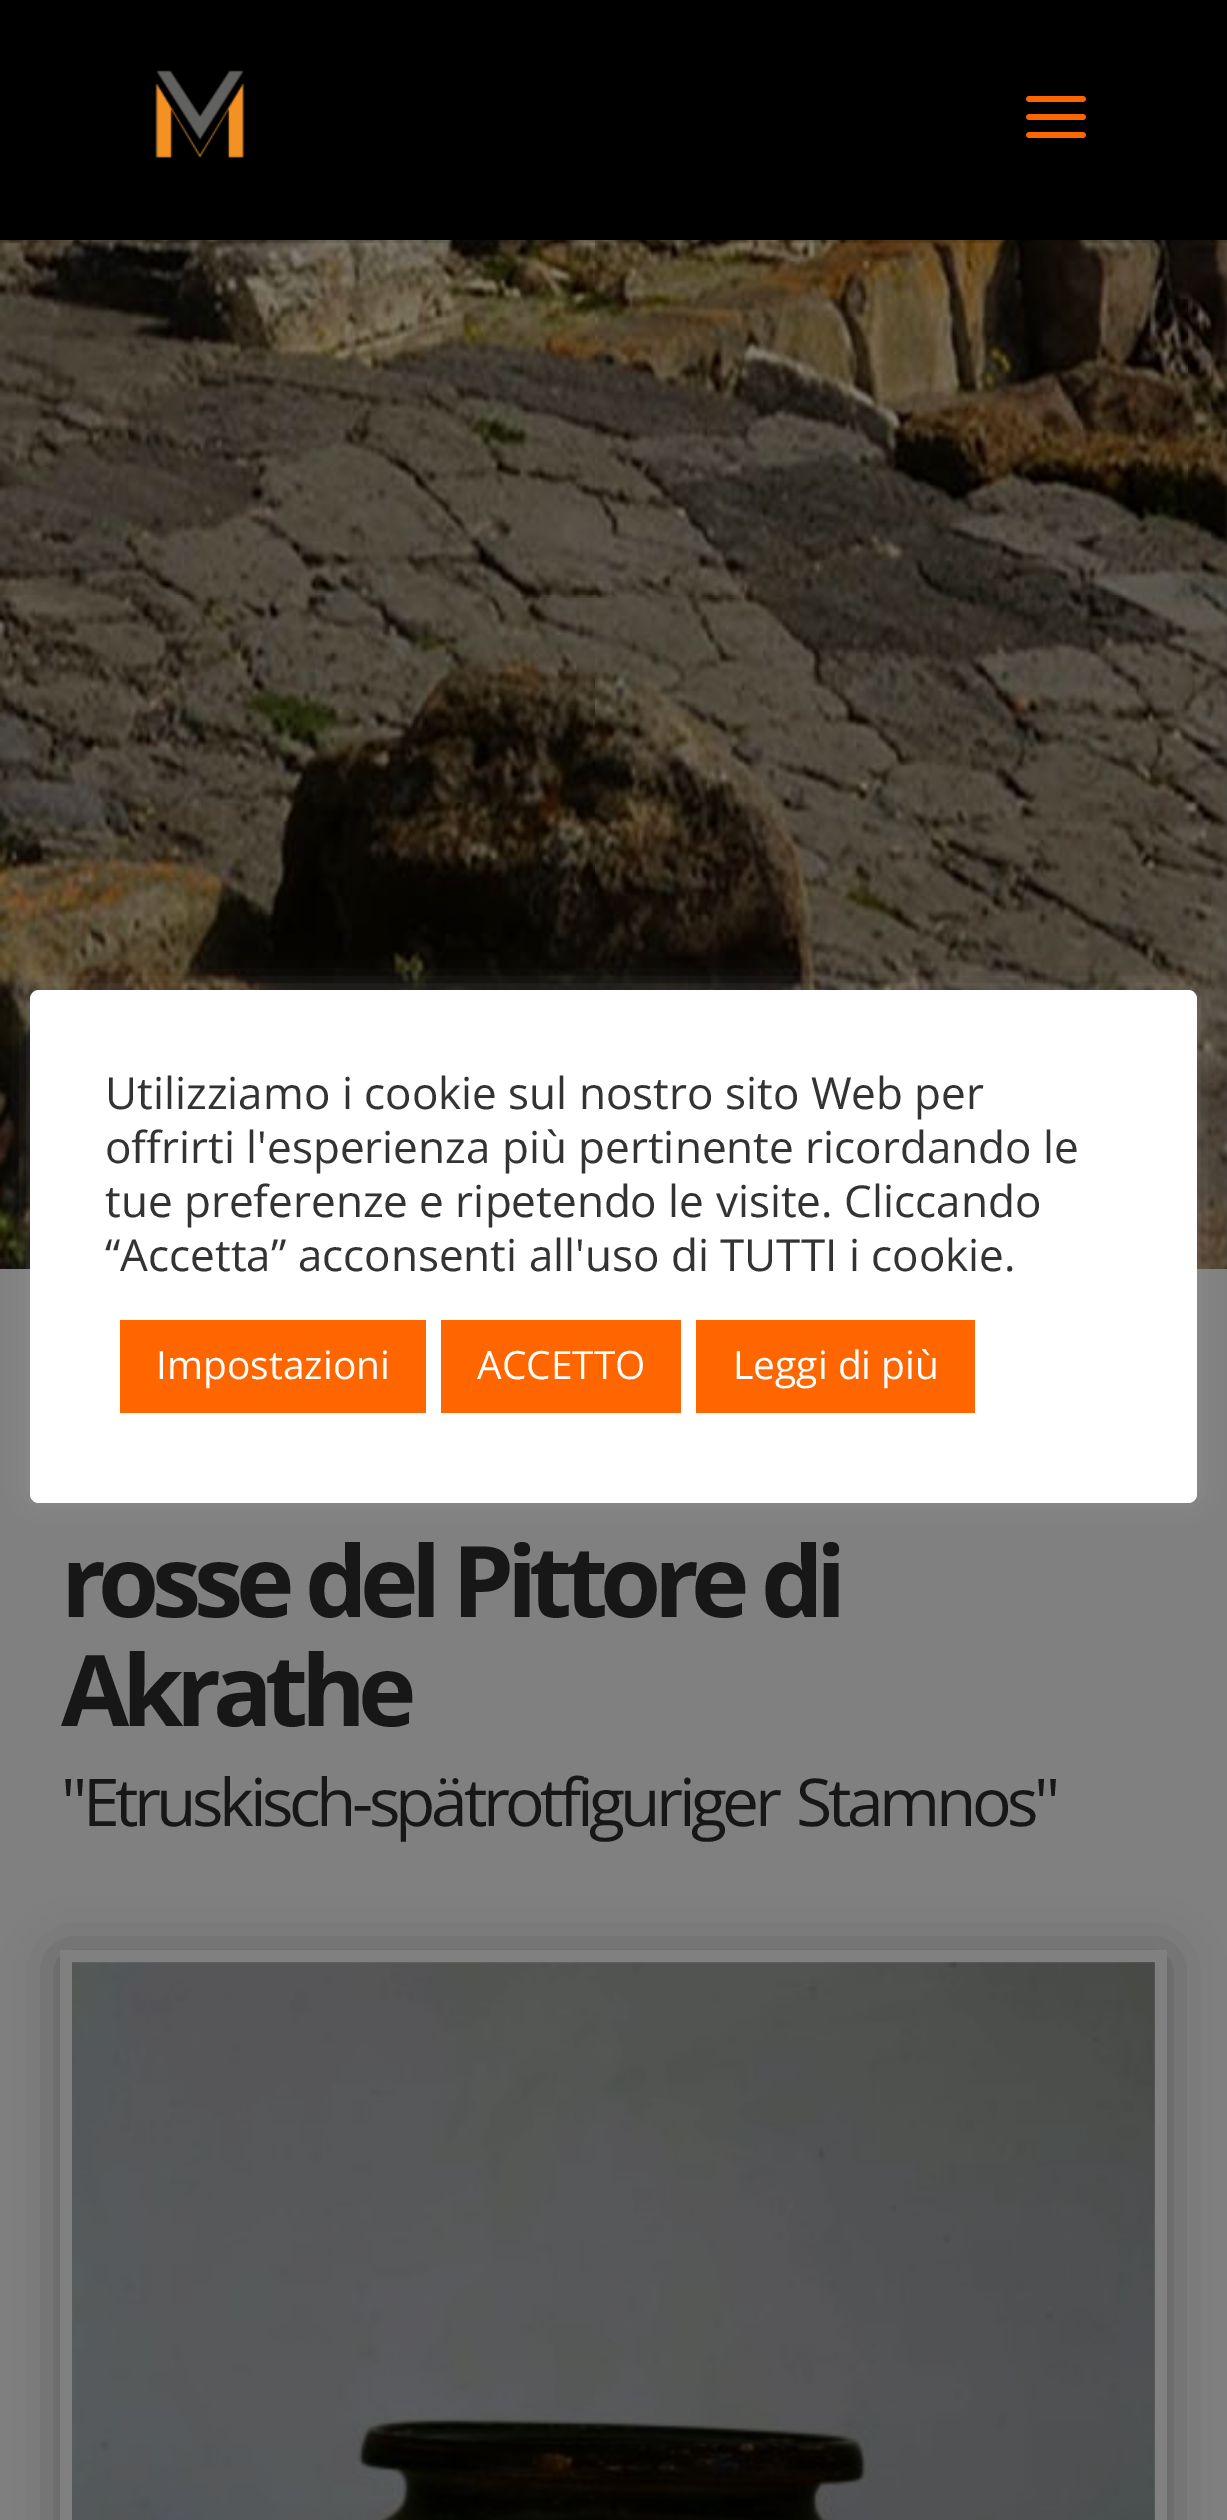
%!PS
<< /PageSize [1227 2520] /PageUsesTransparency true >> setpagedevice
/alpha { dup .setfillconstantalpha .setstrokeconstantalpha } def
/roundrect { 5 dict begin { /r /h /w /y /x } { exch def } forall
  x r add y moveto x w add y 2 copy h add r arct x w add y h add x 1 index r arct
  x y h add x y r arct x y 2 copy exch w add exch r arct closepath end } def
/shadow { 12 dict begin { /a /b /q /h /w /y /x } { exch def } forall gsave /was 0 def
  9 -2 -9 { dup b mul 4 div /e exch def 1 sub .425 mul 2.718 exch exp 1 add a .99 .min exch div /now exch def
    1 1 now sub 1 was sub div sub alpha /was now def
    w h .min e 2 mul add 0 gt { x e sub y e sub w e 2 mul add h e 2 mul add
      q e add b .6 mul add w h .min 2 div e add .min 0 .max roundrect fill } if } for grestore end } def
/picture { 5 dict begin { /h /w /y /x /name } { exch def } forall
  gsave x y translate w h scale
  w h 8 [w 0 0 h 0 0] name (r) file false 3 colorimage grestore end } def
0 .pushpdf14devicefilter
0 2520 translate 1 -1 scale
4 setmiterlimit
0.502 setgray
0 0 1227 2520 rectfill
(img3.rgb) 0 240 1227 1029 picture
0.675 0.671 0.671 setrgbcolor
30 987 1167 513 9 15 0.3 shadow
1 setgray
30 990 1167 513 9 roundrect fill
/OpenSans-Regular [44 0 0 -44 0 0] selectfont
0.2 setgray
105 1109 moveto (Utilizziamo i cookie sul nostro sito Web per) show
105 1163 moveto (offrirti l'esperienza più pertinente ricordando le) show
105 1217 moveto (tue preferenze e ripetendo le visite. Cliccando) show
105 1271 moveto (“Accetta” acconsenti all'uso di TUTTI i cookie.) show
1 0.4 0 setrgbcolor
120 1320 306 93 rectfill
/OpenSans-Regular [39 0 0 -39 0 0] selectfont
1 setgray
156 1379 moveto (Impostazioni) show
1 0.4 0 setrgbcolor
441 1320 240 93 rectfill
1 setgray
477 1379 moveto (ACCETTO) show
1 0.4 0 setrgbcolor
696 1320 279 93 rectfill
1 setgray
733 1379 moveto (Leggi di più) show
0.1 alpha
0 setgray
0 240 1227 3 rectfill
1 alpha
0 0 1227 240 rectfill
(img1.rgb) 155 70 90 88 picture
(img2.rgb) 1026 96 60 42 picture
/OpenSans-Bold [99 0 0 -99 0 0] selectfont
0.09 setgray
61 1617 moveto -7.5 0 (rosse del Pittore di) ashow
61 1726 moveto -7.5 0 (Akrathe) ashow
/OpenSans-Regular [66 0 0 -66 0 0] selectfont
61 1826 moveto 6 0 32 -4.5 0 ("Etruskisch-spätrotfiguriger Stamnos") awidthshow
gsave
newpath 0 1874 moveto 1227 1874 lineto 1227 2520 lineto 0 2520 lineto closepath 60 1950 moveto 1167 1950 lineto 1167 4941 lineto 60 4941 lineto closepath eoclip newpath
0 setgray
60 1956 1107 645 0 27 0.3 shadow
grestore
(img4.rgb) 72 1962 1083 558 picture
.poppdf14devicefilter showpage
